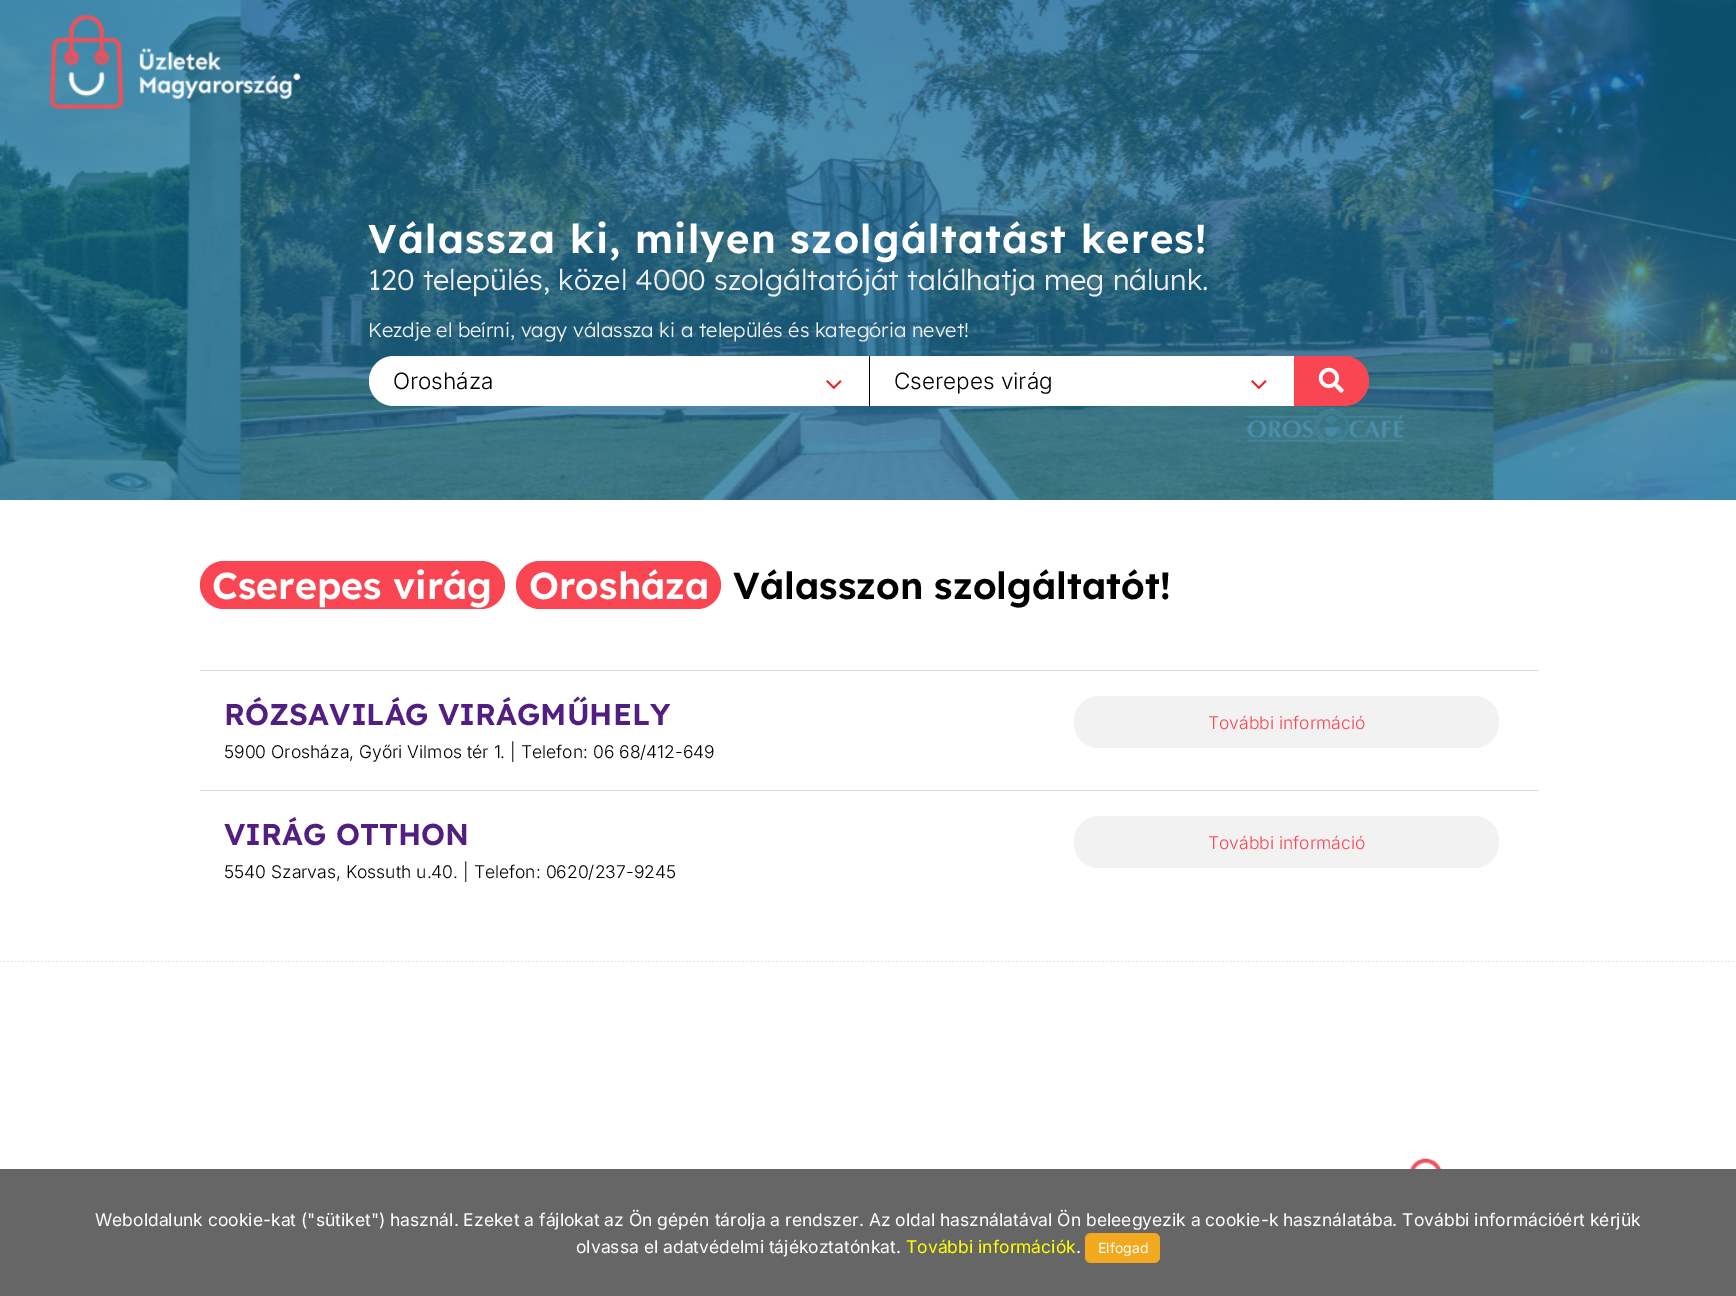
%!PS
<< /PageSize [1736 1296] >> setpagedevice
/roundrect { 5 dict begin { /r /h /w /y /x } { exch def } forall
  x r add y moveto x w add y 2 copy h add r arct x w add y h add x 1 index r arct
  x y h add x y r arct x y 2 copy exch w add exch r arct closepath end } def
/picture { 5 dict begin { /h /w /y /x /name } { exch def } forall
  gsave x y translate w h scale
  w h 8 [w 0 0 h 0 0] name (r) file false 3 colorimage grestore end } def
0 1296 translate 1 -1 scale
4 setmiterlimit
1 setgray
0 0 1736 1296 rectfill
(img2.rgb) 0 0 1736 500 picture
(img1.rgb) 49 14 252 95 picture
/Lexend-SemiBold [40 0 0 -40 0 0] selectfont
368 253 moveto 1.25 0 (Válassza ki, milyen szolgáltatást keres!) ashow
/Lexend-Light [28.75 0 0 -28.75 0 0] selectfont
0.933 setgray
368 290 moveto (120 település, közel 4000 szolgáltatóját találhatja meg nálunk.) show
/Lexend-Light [20 0 0 -20 0 0] selectfont
368 337 moveto (Kezdje el beírni, vagy válassza ki a település és kategória nevet!) show
1 setgray
newpath 394 356 moveto 869 356 lineto 869 406 lineto 394 406 lineto 380 406 369 395 369 381 curveto 369 367 380 356 394 356 curveto closepath fill
/Inter-Light [22.5 0 0 -22.5 0 0] selectfont
0 setgray
393 389 moveto (Orosháza) show
(img3.rgb) 826 380 16 10 picture
1 setgray
870 356 424 50 rectfill
0 setgray
869 356 1 50 rectfill
894 389 moveto (Cserepes virág) show
(img3.rgb) 1251 380 16 10 picture
0.98 0.275 0.322 setrgbcolor
newpath 1294 356 moveto 1344 356 lineto 1358 356 1369 367 1369 381 curveto 1369 395 1358 406 1344 406 curveto 1294 406 lineto closepath fill
(img4.rgb) 1318 367 26 26 picture
(img5.rgb) 0 961 1734 1 picture
200 561 305 48 24 roundrect fill
/Lexend-SemiBold [37.5 0 0 -37.5 0 0] selectfont
1 setgray
212 599 moveto (Cserepes virág) show
0.98 0.275 0.322 setrgbcolor
516 561 205 48 24 roundrect fill
1 setgray
529 599 moveto (Orosháza) show
0 setgray
733 599 moveto (Válasszon szolgáltatót!) show
0.851 setgray
200 670 1338 1 rectfill
/Lexend-SemiBold [30 0 0 -30 0 0] selectfont
0.322 0.118 0.506 setrgbcolor
224 725 moveto (RÓZSAVILÁG VIRÁGMŰHELY) show
/Inter-Light [17.5 0 0 -17.5 0 0] selectfont
0 setgray
224 758 moveto (5900 Orosháza, Győri Vilmos tér 1. | Telefon: 06 68/412-649) show
0.949 setgray
1074 696 425 52 25 roundrect fill
0.98 0.275 0.322 setrgbcolor
1208 729 moveto (További információ) show
0.851 setgray
200 790 1338 1 rectfill
/Lexend-SemiBold [30 0 0 -30 0 0] selectfont
0.322 0.118 0.506 setrgbcolor
224 845 moveto (VIRÁG OTTHON) show
/Inter-Light [17.5 0 0 -17.5 0 0] selectfont
0 setgray
224 878 moveto (5540 Szarvas, Kossuth u.40. | Telefon: 0620/237-9245) show
0.949 setgray
1074 816 425 52 25 roundrect fill
0.98 0.275 0.322 setrgbcolor
1208 849 moveto (További információ) show
(img6.rgb) 1409 1158 33 11 picture
0.4 setgray
0 1169 1736 127 rectfill
/Inter-Regular [17.5 0 0 -17.5 0 0] selectfont
1 setgray
95 1226 moveto (Weboldalunk cookie-kat \("sütiket"\) használ. Ezeket a fájlokat az Ön gépén tárolja a rendszer. Az oldal használatával Ön beleegyezik a cookie-k használatába. További információért kérjük) show
576 1253 moveto (olvassa el adatvédelmi tájékoztatónkat.) show
1 1 0 setrgbcolor
906 1253 moveto (További információk) show
1 setgray
1076 1253 moveto (.) show
0.949 0.663 0.125 setrgbcolor
1085 1233 75 30 6 roundrect fill
/Inter-Regular [14 0 0 -14 0 0] selectfont
1 setgray
1098 1253 moveto (Elfogad) show
showpage
